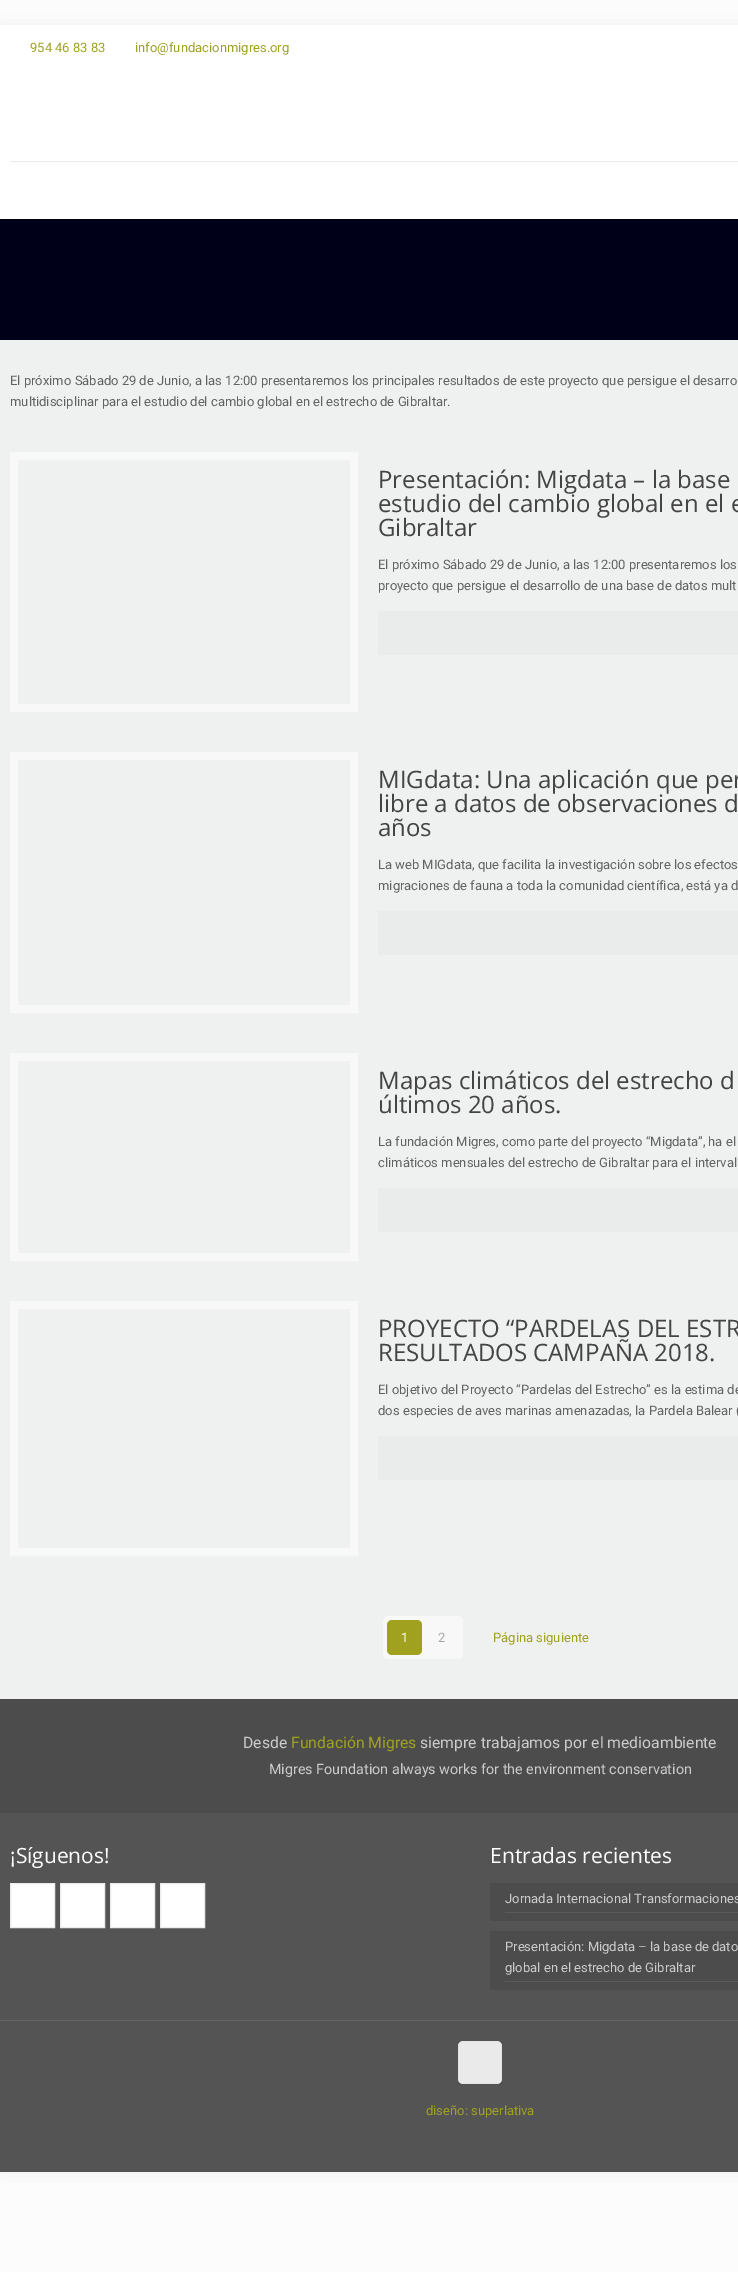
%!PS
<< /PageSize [738 2272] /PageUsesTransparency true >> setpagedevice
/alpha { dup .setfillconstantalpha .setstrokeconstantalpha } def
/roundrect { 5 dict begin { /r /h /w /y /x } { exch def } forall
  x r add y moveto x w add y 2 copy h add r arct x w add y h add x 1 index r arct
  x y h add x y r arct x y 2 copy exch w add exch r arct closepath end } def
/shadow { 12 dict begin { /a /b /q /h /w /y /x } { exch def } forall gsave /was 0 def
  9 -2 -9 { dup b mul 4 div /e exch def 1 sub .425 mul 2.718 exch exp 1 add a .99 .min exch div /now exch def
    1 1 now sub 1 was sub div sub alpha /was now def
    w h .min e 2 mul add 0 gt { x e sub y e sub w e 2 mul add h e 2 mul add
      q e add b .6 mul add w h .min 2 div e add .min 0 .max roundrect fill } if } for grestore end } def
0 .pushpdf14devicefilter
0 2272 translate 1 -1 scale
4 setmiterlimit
0.988 setgray
0 0 738 2272 rectfill
0 setgray
0 25 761 2147 0 7.5 0.06 shadow
0.937 0.941 0.941 setrgbcolor
0 340 738 1359 rectfill
0 0.004 0.098 setrgbcolor
0 219 738 121 rectfill
1 setgray
0 25 738 194 rectfill
/Roboto-Regular [13 0 0 -13 0 0] selectfont
0.624 0.631 0.122 setrgbcolor
30 52 moveto (954 46 83 83) show
135 52 moveto (info@fundacionmigres.org) show
0.922 setgray
10 161 728 1 rectfill
0.384 setgray
10 385 moveto (El próximo Sábado 29 de Junio, a las 12:00 presentaremos los principales resultados de este proyecto que persigue el desarro) show
10 406 moveto (multidisciplinar para el estudio del cambio global en el estrecho de Gibraltar.) show
0.973 setgray
8 setlinewidth
14 456 340 252 rectstroke
/OpenSans-Regular [24 0 0 -24 0 0] selectfont
0.267 setgray
378 488 moveto (Presentación: Migdata – la base) show
378 512 moveto (estudio del cambio global en el e) show
378 536 moveto (Gibraltar) show
/Roboto-Regular [13 0 0 -13 0 0] selectfont
0.384 setgray
378 569 moveto (El próximo Sábado 29 de Junio, a las 12:00 presentaremos los) show
378 590 moveto (proyecto que persigue el desarrollo de una base de datos mult) show
0.918 0.922 0.922 setrgbcolor
378 611 360 44 rectfill
0.973 setgray
14 756 340 253 rectstroke
/OpenSans-Regular [24 0 0 -24 0 0] selectfont
0.267 setgray
378 788 moveto (MIGdata: Una aplicación que per) show
378 812 moveto (libre a datos de observaciones d) show
378 836 moveto (años) show
/Roboto-Regular [13 0 0 -13 0 0] selectfont
0.384 setgray
378 869 moveto (La web MIGdata, que facilita la investigación sobre los efectos) show
378 890 moveto (migraciones de fauna a toda la comunidad científica, está ya d) show
0.918 0.922 0.922 setrgbcolor
378 911 360 44 rectfill
0.973 setgray
14 1057 340 200 rectstroke
/OpenSans-Regular [24 0 0 -24 0 0] selectfont
0.267 setgray
378 1089 moveto (Mapas climáticos del estrecho d) show
378 1113 moveto (últimos 20 años.) show
/Roboto-Regular [13 0 0 -13 0 0] selectfont
0.384 setgray
378 1146 moveto (La fundación Migres, como parte del proyecto “Migdata”, ha el) show
378 1167 moveto (climáticos mensuales del estrecho de Gibraltar para el interval) show
0.918 0.922 0.922 setrgbcolor
378 1188 360 44 rectfill
0.973 setgray
14 1305 340 247 rectstroke
/OpenSans-Regular [24 0 0 -24 0 0] selectfont
0.267 setgray
378 1337 moveto (PROYECTO “PARDELAS DEL ESTR) show
378 1361 moveto (RESULTADOS CAMPAÑA 2018.) show
/Roboto-Regular [13 0 0 -13 0 0] selectfont
0.384 setgray
378 1394 moveto (El objetivo del Proyecto “Pardelas del Estrecho” es la estima de) show
378 1415 moveto (dos especies de aves marinas amenazadas, la Pardela Balear \() show
0.918 0.922 0.922 setrgbcolor
378 1436 360 44 rectfill
0.973 setgray
383 1616 80 43 5 roundrect fill
0.624 0.631 0.122 setrgbcolor
387 1620 35 35 5 roundrect fill
1 setgray
401 1642 moveto (1) show
0.659 setgray
438 1642 moveto (2) show
0.624 0.631 0.122 setrgbcolor
493 1642 moveto (Página siguiente) show
0.329 setgray
0 1813 738 359 rectfill
0.298 setgray
0 1699 738 114 rectfill
/Roboto-Regular [15.75 0 0 -15.75 0 0] selectfont
0.8 setgray
243 1748 moveto (Desde) show
0.624 0.631 0.122 setrgbcolor
291 1748 moveto (Fundación Migres) show
0.8 setgray
420 1748 moveto (siempre trabajamos por el medioambiente) show
/Roboto-Regular [14.3 0 0 -14.3 0 0] selectfont
269 1774 moveto (Migres Foundation always works for the environment conservation) show
/OpenSans-Regular [21 0 0 -21 0 0] selectfont
1 setgray
10 1863 moveto (¡Síguenos!) show
newpath 10.5 1883.5 moveto 54.5 1883.5 lineto 54.5 1927.5 lineto 10.5 1927.5 lineto closepath gsave fill grestore
0.922 setgray
1 setlinewidth
stroke
1 setgray
newpath 60.5 1883.5 moveto 104.5 1883.5 lineto 104.5 1927.5 lineto 60.5 1927.5 lineto closepath gsave fill grestore
0.922 setgray
stroke
1 setgray
newpath 110.5 1883.5 moveto 154.5 1883.5 lineto 154.5 1927.5 lineto 110.5 1927.5 lineto closepath gsave fill grestore
0.922 setgray
stroke
1 setgray
newpath 160.5 1883.5 moveto 204.5 1883.5 lineto 204.5 1927.5 lineto 160.5 1927.5 lineto closepath gsave fill grestore
0.922 setgray
stroke
1 setgray
490 1863 moveto (Entradas recientes) show
0.298 setgray
490 1883 248 38 rectfill
0.353 setgray
505 1912 233 1 rectfill
/Roboto-Regular [13 0 0 -13 0 0] selectfont
0.8 setgray
505 1903 moveto (Jornada Internacional Transformaciones) show
0.298 setgray
490 1931 248 59 rectfill
0.353 setgray
505 1981 233 1 rectfill
0.8 setgray
505 1951 moveto (Presentación: Migdata – la base de dato) show
505 1972 moveto (global en el estrecho de Gibraltar) show
0.396 setgray
0 2020 738 1 rectfill
0.969 setgray
458 2041 44 43 5 roundrect fill
0.03 alpha
0 setgray
458.5 2041.5 43 42 rectstroke
0.05 alpha
458 2041 44 43 rectfill
1 alpha
0.624 0.631 0.122 setrgbcolor
426 2115 moveto (diseño: superlativa) show
.poppdf14devicefilter showpage
